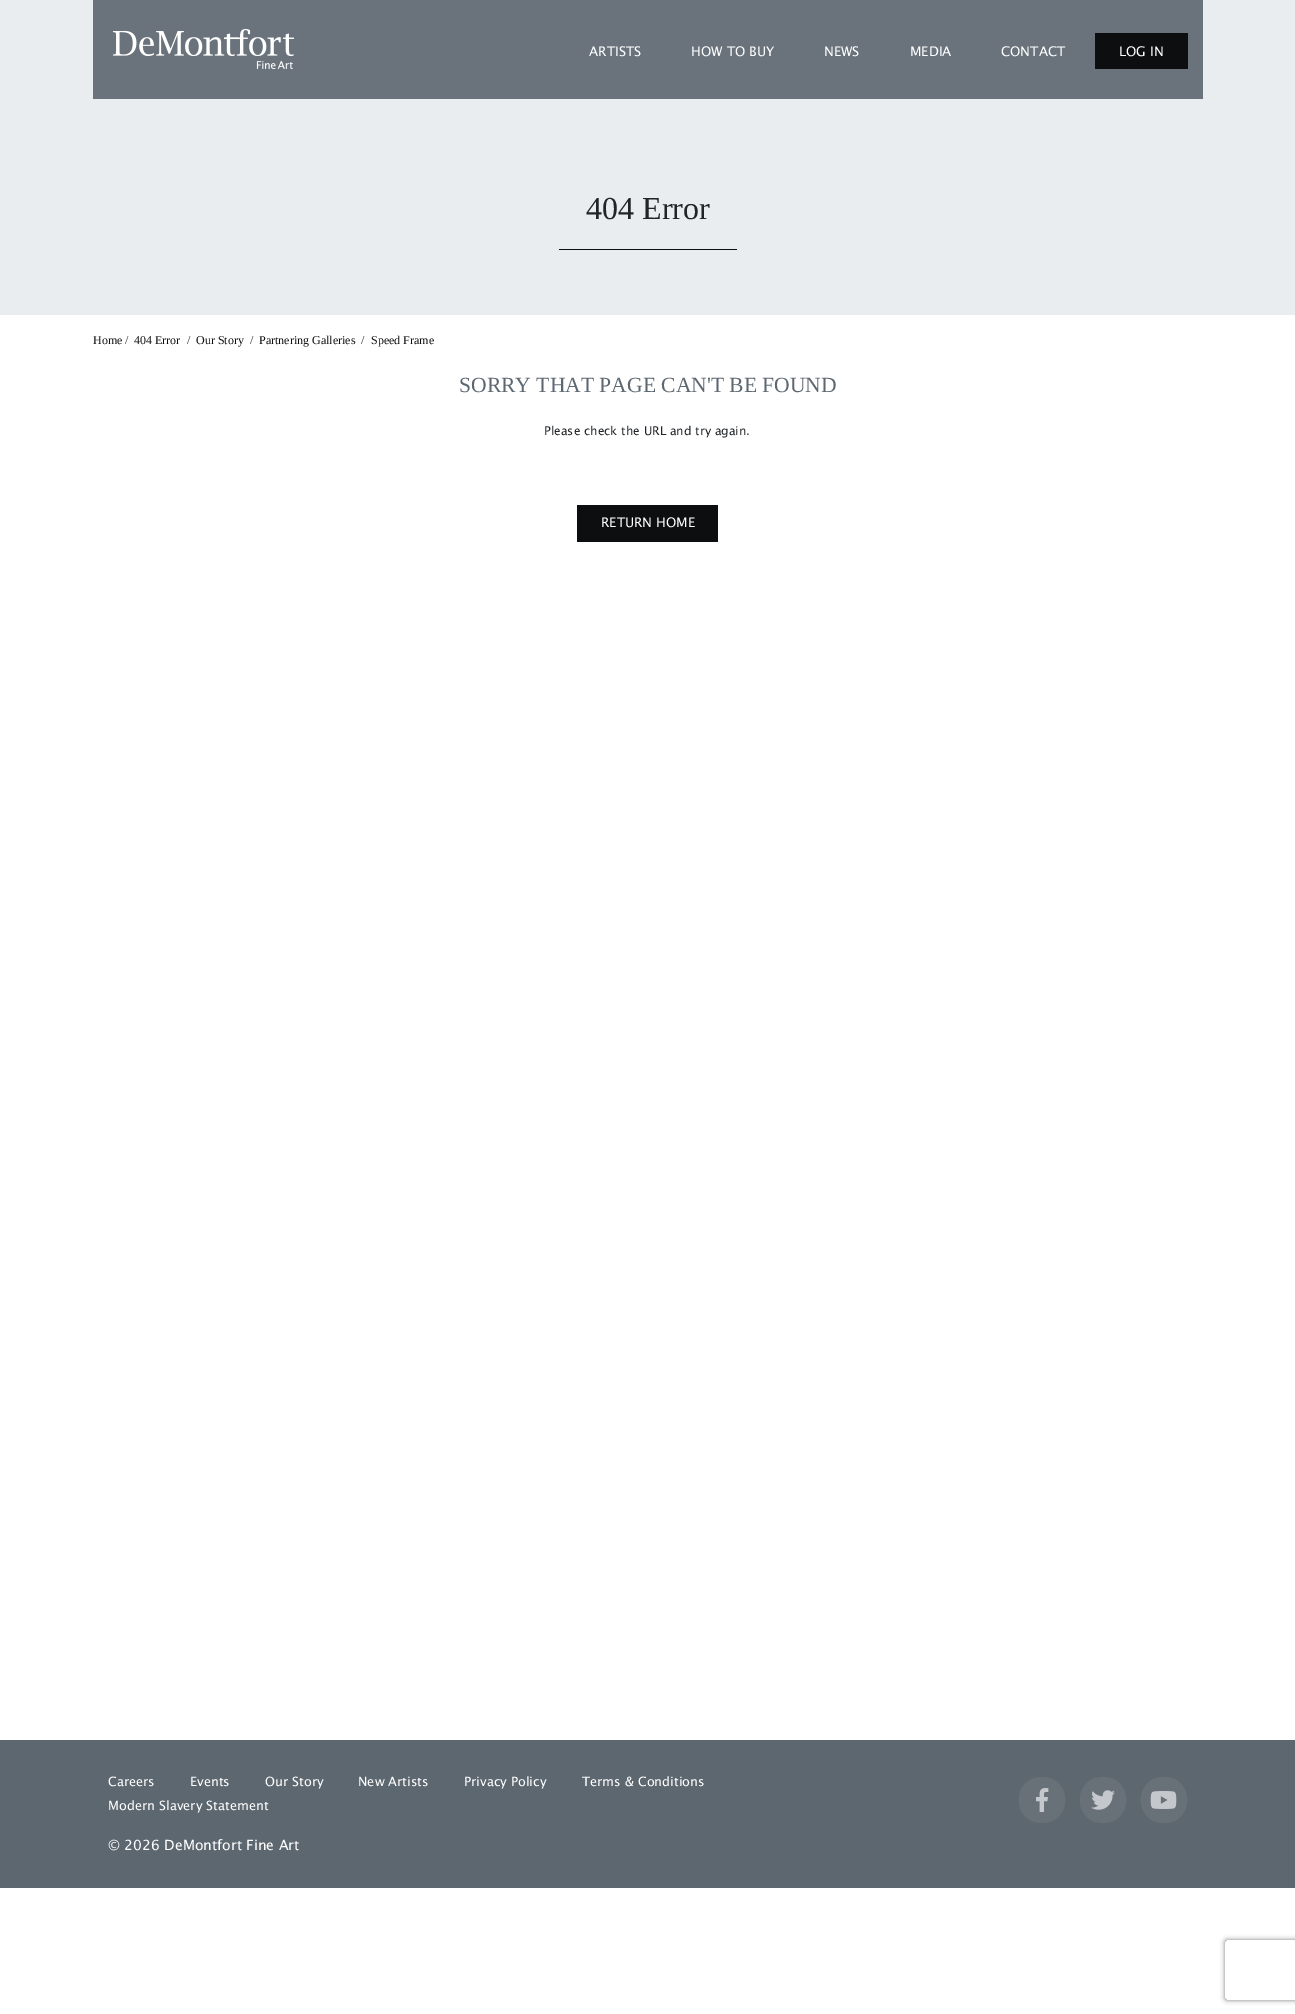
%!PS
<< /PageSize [1295 2014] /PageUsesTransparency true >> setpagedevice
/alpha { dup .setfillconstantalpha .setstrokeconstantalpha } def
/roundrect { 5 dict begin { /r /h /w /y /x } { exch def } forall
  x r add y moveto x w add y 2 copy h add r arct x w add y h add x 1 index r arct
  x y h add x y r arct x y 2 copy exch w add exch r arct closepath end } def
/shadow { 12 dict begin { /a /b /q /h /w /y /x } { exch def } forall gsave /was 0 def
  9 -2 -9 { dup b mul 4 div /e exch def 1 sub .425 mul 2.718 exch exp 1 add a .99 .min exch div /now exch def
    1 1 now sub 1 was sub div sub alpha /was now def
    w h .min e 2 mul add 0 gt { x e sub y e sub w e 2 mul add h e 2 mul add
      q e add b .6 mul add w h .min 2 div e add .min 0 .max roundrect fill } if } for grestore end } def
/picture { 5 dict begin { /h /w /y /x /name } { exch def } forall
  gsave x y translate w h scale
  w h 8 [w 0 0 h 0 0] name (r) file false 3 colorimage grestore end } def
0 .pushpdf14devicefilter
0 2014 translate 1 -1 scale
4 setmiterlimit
1 setgray
0 0 1295 2014 rectfill
0.918 0.929 0.941 setrgbcolor
0 0 1295 315 rectfill
0.416 0.451 0.486 setrgbcolor
93 0 1110 99 rectfill
(img1.rgb) 113 29 181 40 picture
/LucidaGrande-Regular [13.25 0 0 -13.25 0 0] selectfont
1 setgray
589 56 moveto (ARTISTS) show
691 56 moveto (HOW TO BUY) show
824 56 moveto (NEWS) show
910 56 moveto (MEDIA) show
1001 56 moveto (CONTACT) show
0.051 0.055 0.059 setrgbcolor
1095 33 93 36 rectfill
1 setgray
1119 56 moveto (LOG IN) show
/Tinos-Regular [32 0 0 -32 0 0] selectfont
0.129 0.145 0.161 setrgbcolor
586 219 moveto (404 Error) show
0.051 0.055 0.059 setrgbcolor
559 249 178 1 rectfill
/Tinos-Regular [12 0 0 -12 0 0] selectfont
93 344 moveto (Home) show
0.129 0.145 0.161 setrgbcolor
125 344 moveto (/) show
0.051 0.055 0.059 setrgbcolor
134 344 moveto (404 Error) show
0.129 0.145 0.161 setrgbcolor
187 344 moveto (/) show
0.051 0.055 0.059 setrgbcolor
196 344 moveto (Our Story) show
0.129 0.145 0.161 setrgbcolor
250 344 moveto (/) show
0.051 0.055 0.059 setrgbcolor
259 344 moveto (Partnering Galleries) show
0.129 0.145 0.161 setrgbcolor
361 344 moveto (/) show
0.051 0.055 0.059 setrgbcolor
371 344 moveto (Speed Frame) show
/Tinos-Regular [21.6 0 0 -21.6 0 0] selectfont
0.361 0.404 0.439 setrgbcolor
459 392 moveto (SORRY THAT PAGE CAN'T BE FOUND) show
/LucidaGrande-Regular [12 0 0 -12 0 0] selectfont
0.129 0.145 0.161 setrgbcolor
544 435 moveto (Please check the URL and try again.) show
0.051 0.055 0.059 setrgbcolor
577 505 141 37 rectfill
/LucidaGrande-Regular [13.25 0 0 -13.25 0 0] selectfont
1 setgray
601 527 moveto (RETURN HOME) show
0.365 0.404 0.439 setrgbcolor
0 1740 1295 148 rectfill
/LucidaGrande-Regular [12.75 0 0 -12.75 0 0] selectfont
1 setgray
108 1786 moveto (Careers) show
190 1786 moveto (Events) show
265 1786 moveto (Our Story) show
358 1786 moveto (New Artists) show
464 1786 moveto (Privacy Policy) show
582 1786 moveto (Terms & Conditions) show
108 1810 moveto (Modern Slavery Statement) show
0.408 0.439 0.471 setrgbcolor
newpath 1042 1777 moveto 1011 1777 1011 1823 1042 1823 curveto 1073 1823 1073 1777 1042 1777 curveto closepath fill
(img2.rgb) 1036 1788 13 24 picture
newpath 1103 1777 moveto 1072 1777 1072 1823 1103 1823 curveto 1134 1823 1134 1777 1103 1777 curveto closepath fill
(img3.rgb) 1091 1790 24 20 picture
newpath 1164 1777 moveto 1133 1777 1133 1823 1164 1823 curveto 1195 1823 1195 1777 1164 1777 curveto closepath fill
(img4.rgb) 1150 1791 27 18 picture
/LucidaGrande-Regular [14 0 0 -14 0 0] selectfont
1 setgray
108 1850 moveto (© 2026 DeMontfort Fine Art) show
gsave
newpath 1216 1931 moveto 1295 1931 lineto 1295 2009 lineto 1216 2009 lineto closepath 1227 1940 moveto 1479 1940 lineto 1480 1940 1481 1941 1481 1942 curveto 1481 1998 lineto 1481 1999 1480 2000 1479 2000 curveto 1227 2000 lineto 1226 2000 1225 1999 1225 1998 curveto 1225 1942 lineto 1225 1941 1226 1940 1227 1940 curveto closepath eoclip newpath
0.502 setgray
1225 1940 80 60 2 2.5 1 shadow
grestore
.poppdf14devicefilter showpage
